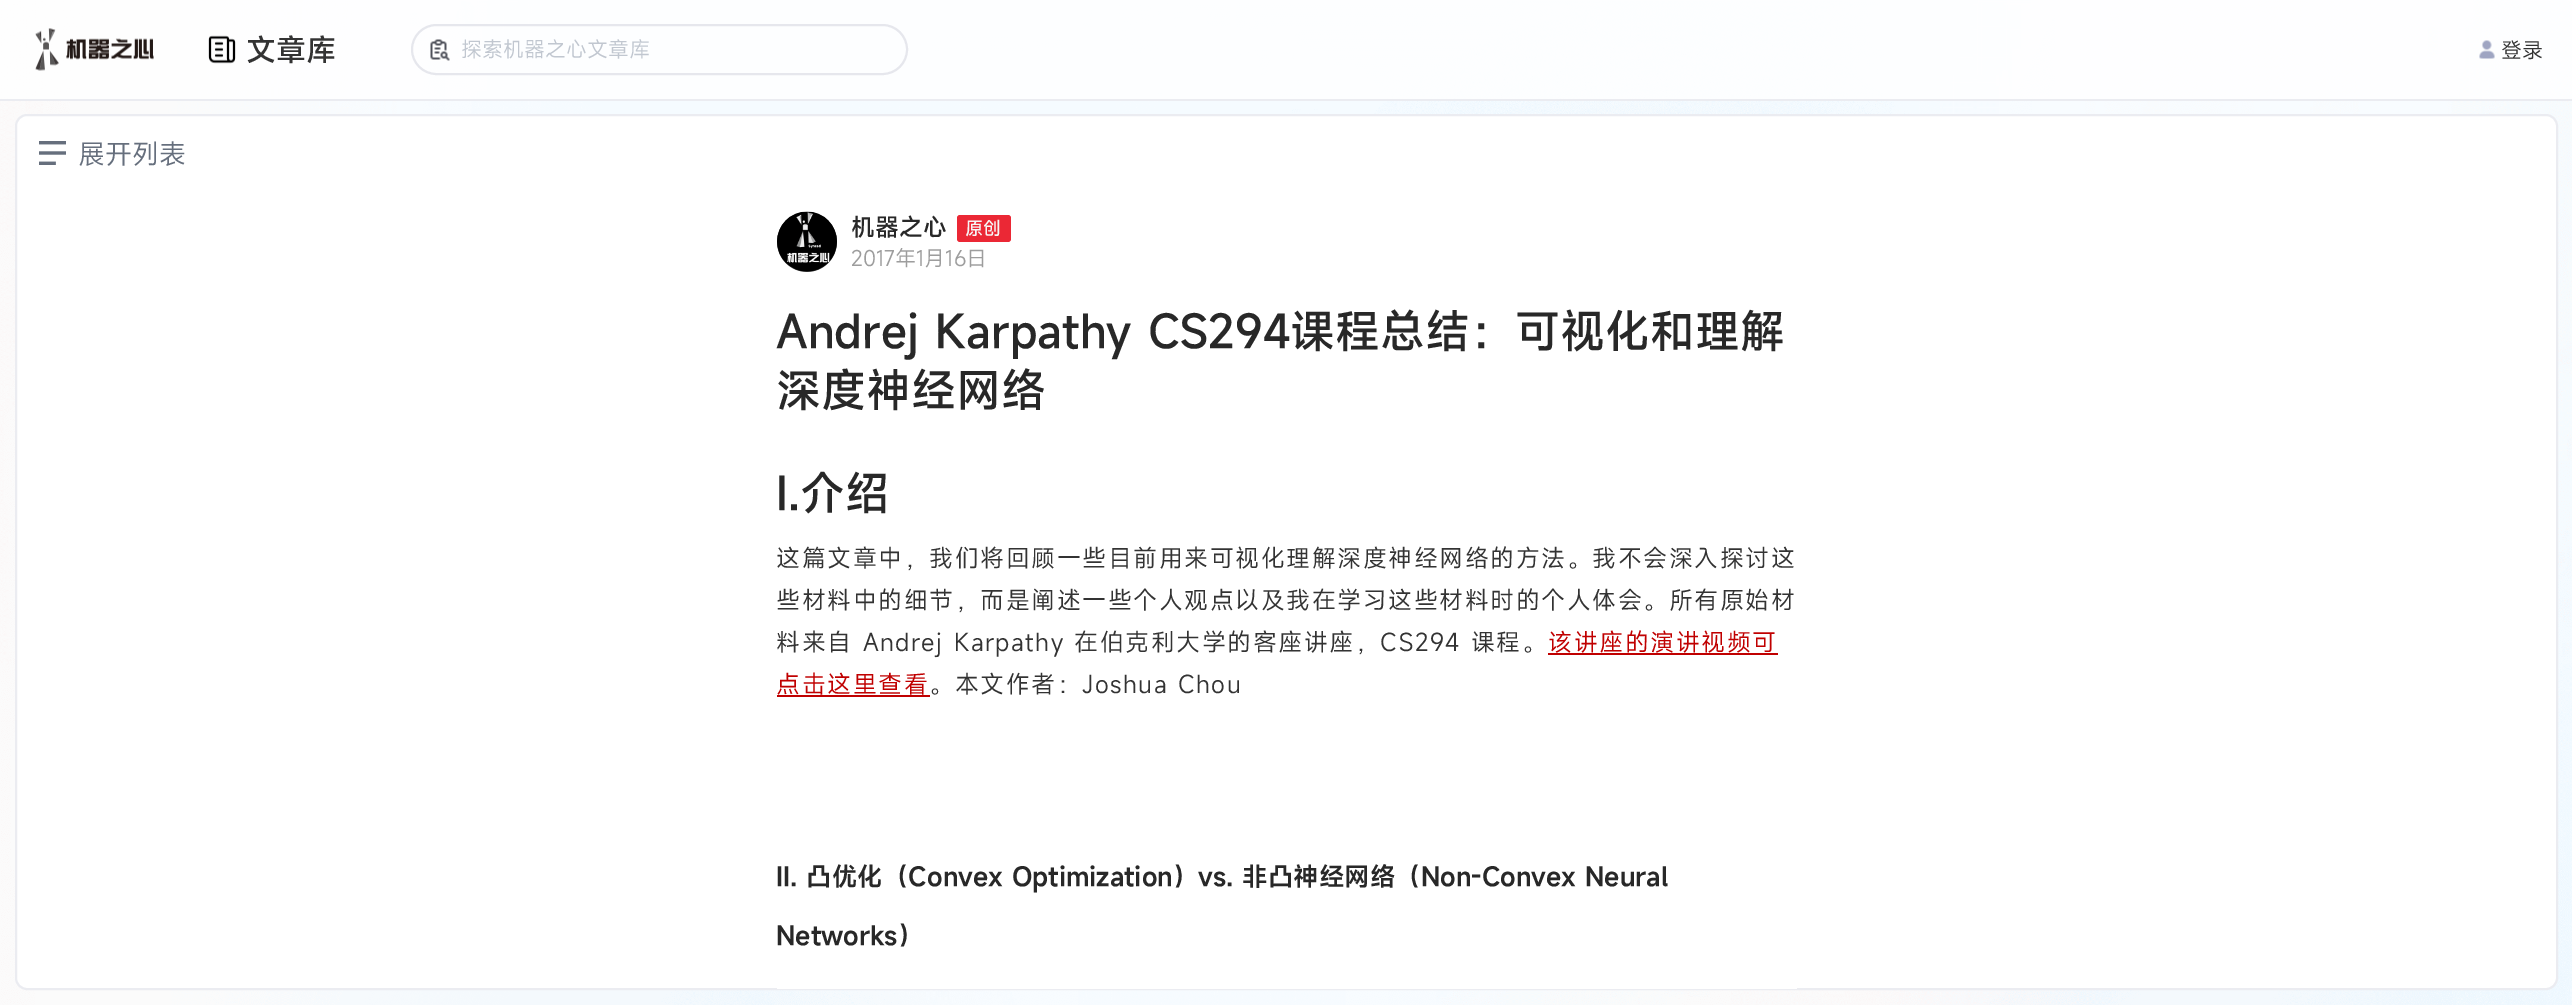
%!PS
<< /PageSize [2572 1005] /PageUsesTransparency true >> setpagedevice
/alpha { dup .setfillconstantalpha .setstrokeconstantalpha } def
/roundrect { 5 dict begin { /r /h /w /y /x } { exch def } forall
  x r add y moveto x w add y 2 copy h add r arct x w add y h add x 1 index r arct
  x y h add x y r arct x y 2 copy exch w add exch r arct closepath end } def
/picture { 5 dict begin { /h /w /y /x /name } { exch def } forall
  gsave x y translate w h scale
  w h 8 [w 0 0 h 0 0] name (r) file false 3 colorimage grestore end } def
0 .pushpdf14devicefilter
0 1005 translate 1 -1 scale
4 setmiterlimit
1 setgray
0 0 2572 1005 rectfill
(img1.rgb) 0 0 2572 1005 picture
0.922 0.925 0.945 setrgbcolor
newpath 0 99 moveto 0 101 lineto 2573 101 lineto 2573 2 lineto 2572 2 lineto 2572 99 lineto closepath fill
0.8 alpha
1 setgray
0 0 2572 99 rectfill
1 alpha
(img2.rgb) 35 28 119 43 picture
(img3.rgb) 208 35 28 29 picture
/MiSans-Medium [30 0 0 -30 0 0] selectfont
0.2 setgray
246 61 moveto (文章库) show
0.902 0.906 0.929 setrgbcolor
2 setlinewidth
412 25 495 49 24.5 roundrect stroke
(img4.rgb) 430 39 20 22 picture
/MiSans-Regular [21 0 0 -21 0 0] selectfont
0.757 0.78 0.816 setrgbcolor
461 57 moveto (探索机器之心文章库) show
(img5.rgb) 2479 40 16 19 picture
0.2 setgray
2501 58 moveto (登录) show
1 setgray
16 115 2541 874 11 roundrect gsave fill grestore
0.922 0.925 0.945 setrgbcolor
stroke
(img6.rgb) 39 141 27 24 picture
/MiSans-Regular [27 0 0 -27 0 0] selectfont
0.4 0.435 0.49 setrgbcolor
78 164 moveto (展开列表) show
1 setgray
777 988 1020 1 rectfill
0.2 setgray
newpath 807 242 30 0 360 arc closepath fill
(img7.rgb) 777 211 60 61 picture
/MiSans-Medium [24 0 0 -24 0 0] selectfont
0.157 setgray
851 236 moveto (机器之心) show
0.922 0.157 0.208 setrgbcolor
957 215 54 27 3 roundrect fill
/MiSans-Medium [18 0 0 -18 0 0] selectfont
0.965 setgray
965 235 moveto (原创) show
/MiSans-Regular [21 0 0 -21 0 0] selectfont
0.616 setgray
851 266 moveto (2017年1月16日) show
/MiSans-Medium [45 0 0 -45 0 0] selectfont
0.157 setgray
776 348 moveto (Andrej Karpathy CS294课程总结：可视化和理解) show
776 407 moveto (深度神经网络) show
776 510 moveto (I.介绍) show
/MiSans-Regular [24 0 0 -24 0 0] selectfont
0.2 setgray
776 567 moveto 1.5 0 (这篇文章中，我们将回顾一些目前用来可视化理解深度神经网络的方法。我不会深入探讨这) ashow
776 609 moveto 1.5 0 (些材料中的细节，而是阐述一些个人观点以及我在学习这些材料时的个人体会。所有原始材) ashow
776 651 moveto 1.5 0 (料来自 Andrej Karpathy 在伯克利大学的客座讲座，CS294 课程。) ashow
0.753 0 0 setrgbcolor
1548 651 moveto 1.5 0 (该讲座的演讲视频可) ashow
1548 653 230 2 rectfill
776 693 moveto 1.5 0 (点击这里查看) ashow
777 695 153 2 rectfill
0.2 setgray
929 693 moveto 1.5 0 (。本文作者：Joshua Chou) ashow
/MiSans-SemiBold [25.5 0 0 -25.5 0 0] selectfont
0.157 setgray
776 886 moveto (II. 凸优化（Convex Optimization）vs. 非凸神经网络（Non-Convex Neural) show
776 945 moveto (Networks）) show
.poppdf14devicefilter showpage
